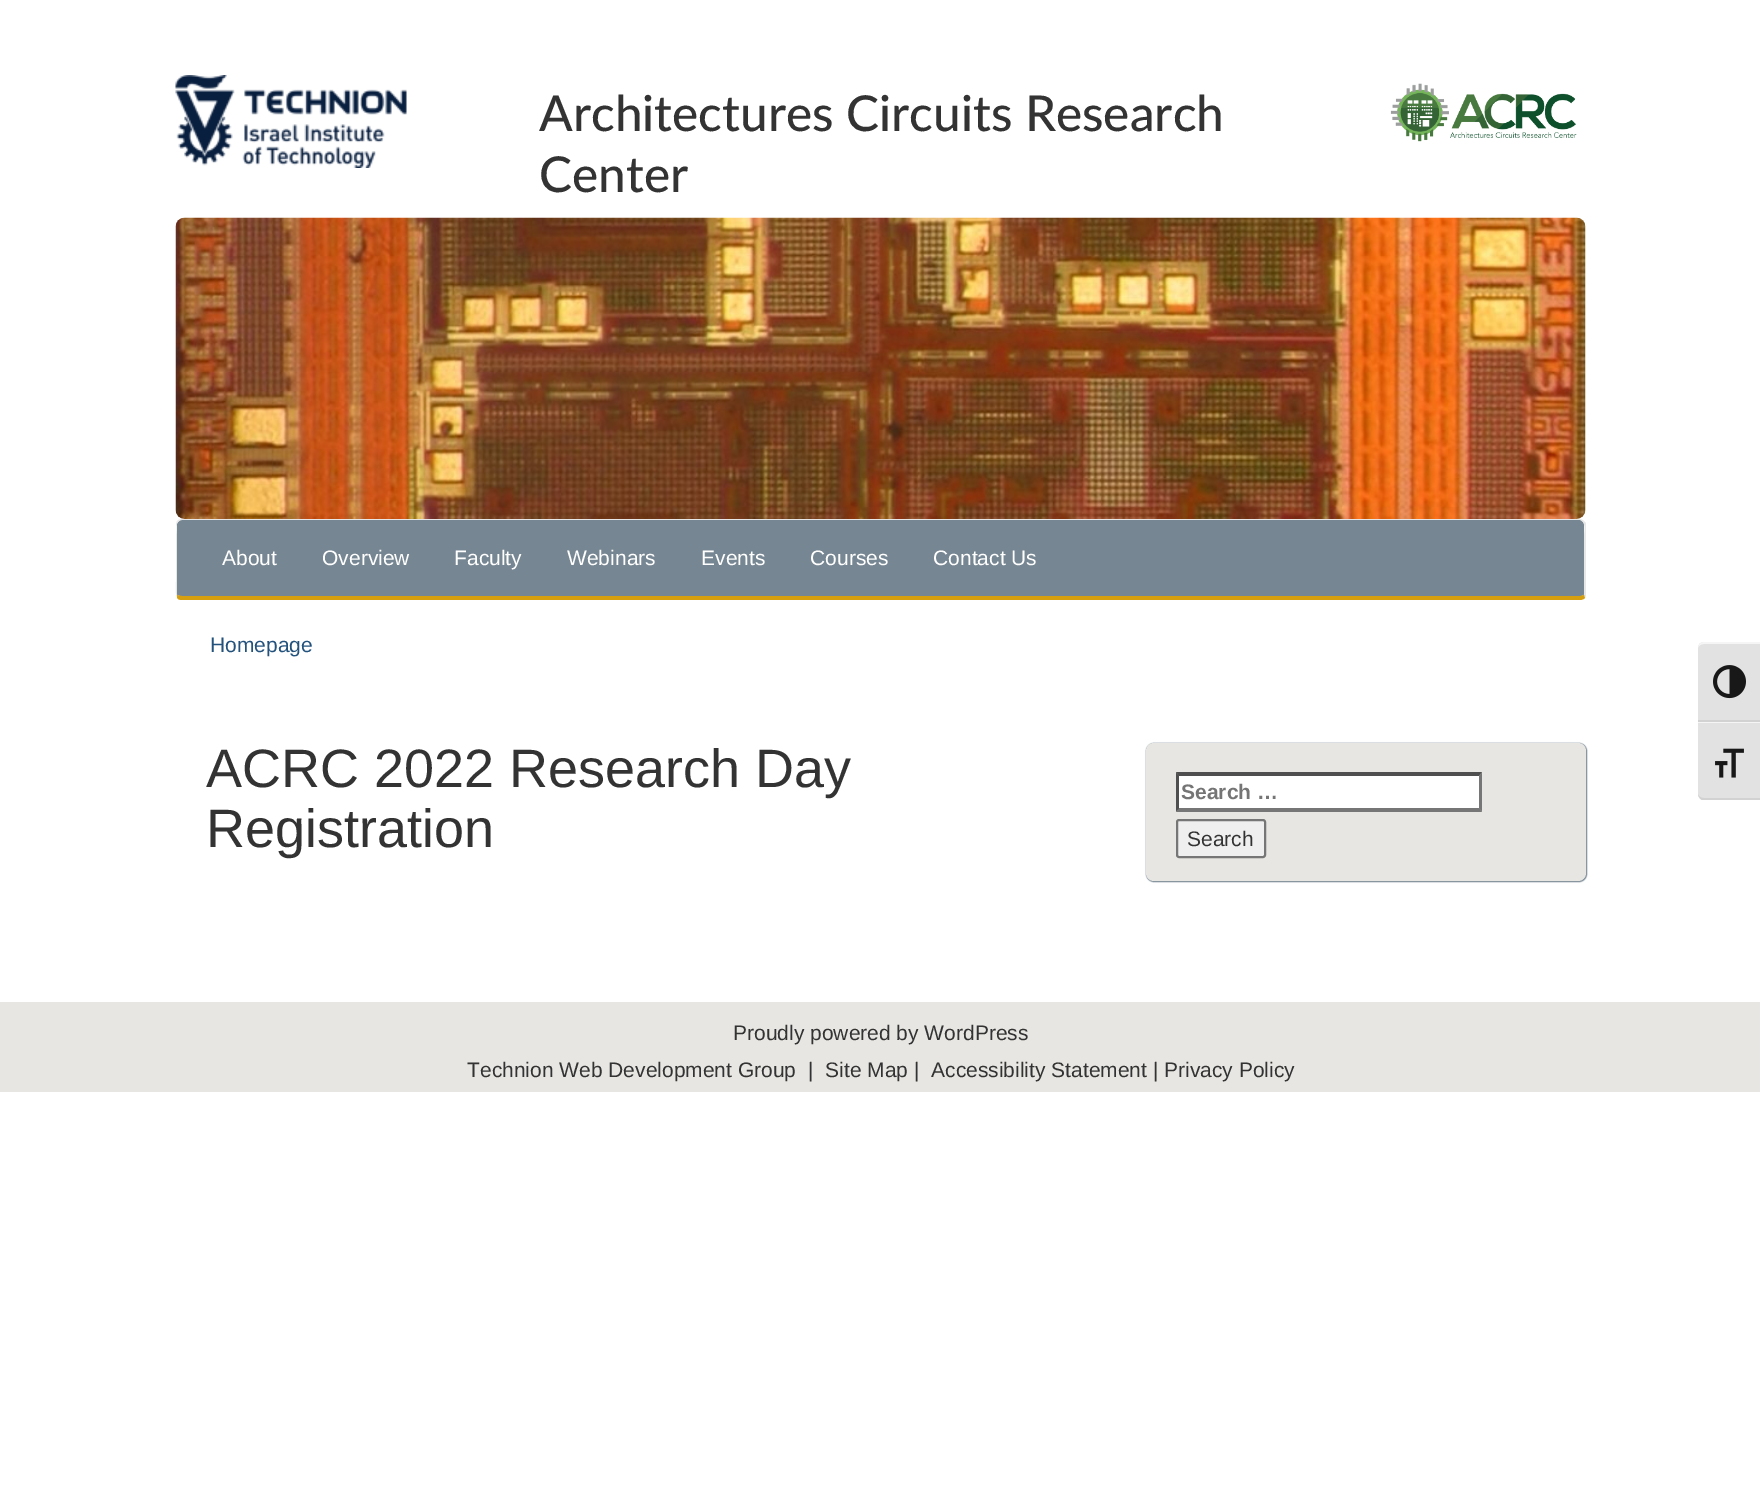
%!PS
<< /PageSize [1760 1494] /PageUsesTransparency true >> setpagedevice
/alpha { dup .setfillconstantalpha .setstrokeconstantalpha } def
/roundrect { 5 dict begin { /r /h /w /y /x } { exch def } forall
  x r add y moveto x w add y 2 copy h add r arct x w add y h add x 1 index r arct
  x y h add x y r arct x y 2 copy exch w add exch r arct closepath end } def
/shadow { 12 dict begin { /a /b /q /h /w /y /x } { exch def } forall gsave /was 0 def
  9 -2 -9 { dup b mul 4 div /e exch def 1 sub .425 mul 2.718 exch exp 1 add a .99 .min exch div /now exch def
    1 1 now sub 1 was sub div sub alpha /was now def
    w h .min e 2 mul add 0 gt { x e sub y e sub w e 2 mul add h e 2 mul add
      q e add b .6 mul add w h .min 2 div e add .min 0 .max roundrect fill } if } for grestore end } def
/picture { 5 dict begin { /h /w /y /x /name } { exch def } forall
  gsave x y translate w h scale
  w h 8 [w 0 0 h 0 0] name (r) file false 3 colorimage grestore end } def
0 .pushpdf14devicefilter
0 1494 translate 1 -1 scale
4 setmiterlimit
1 setgray
0 0 1760 1494 rectfill
(img1.rgb) 175 75 232 93 picture
/Lato-Medium [49.5 0 0 -49.5 0 0] selectfont
0.2 setgray
539 131 moveto (Architectures Circuits Research) show
539 192 moveto (Center) show
(img2.rgb) 1390 83 187 59 picture
(img3.rgb) 175 217 1411 302 picture
0.463 0.525 0.573 setrgbcolor
newpath 182 520 moveto 1580 520 lineto 1582 520 1584 523 1584 525 curveto 1584 594 lineto 1584 595 1582 596 1580 596 curveto 182 596 lineto 179 596 177 595 177 594 curveto 177 525 lineto 177 523 179 520 182 520 curveto closepath fill
0.906 setgray
newpath 182 519 moveto 180 519 178 520 177 521 curveto 178 522 lineto 179 521 180 520 182 520 curveto 1580 520 lineto 1581 520 1582 521 1583 522 curveto 1584 521 lineto 1583 520 1581 519 1580 519 curveto closepath fill
newpath 1586 596 moveto 1585 598 lineto 1584 595 lineto 1584 536 lineto 1584 534 1586 526 1583 522 curveto 1584 521 lineto 1586 523 lineto closepath fill
0.835 0.624 0.063 setrgbcolor
newpath 182 600 moveto 1580 600 lineto 1582 600 1584 599 1585 598 curveto 1584 595 lineto 1583 595 1582 596 1580 596 curveto 182 596 lineto 180 596 178 595 177 595 curveto 177 597 lineto 177 599 179 600 182 600 curveto closepath fill
0.906 setgray
newpath 177 521 moveto 176 524 lineto 176 582 lineto 176 583 175 593 177 597 curveto 177 595 lineto 177 536 lineto 177 534 175 525 178 522 curveto closepath fill
/LiberationSans-Regular [21 0 0 -21 0 0] selectfont
1 setgray
222 565 moveto (About) show
322 565 moveto (Overview) show
454 565 moveto (Faculty) show
567 565 moveto (Webinars) show
701 565 moveto (Events) show
810 565 moveto (Courses) show
933 565 moveto (Contact Us) show
0.137 0.322 0.486 setrgbcolor
210 652 moveto (Homepage) show
/LiberationSans-Regular [54 0 0 -54 0 0] selectfont
0.2 setgray
206 787 moveto (ACRC 2022 Research Day) show
206 847 moveto (Registration) show
0.463 0.525 0.573 setrgbcolor
1146 743 441 139 8 0.5 1 shadow
0.91 0.902 0.886 setrgbcolor
1146 743 440 138 8 roundrect fill
1 setgray
1176 773 306 39 rectfill
0.31 setgray
newpath 1176 772 moveto 1482 772 lineto 1479 776 lineto 1179 776 lineto closepath fill
0.463 setgray
newpath 1482 772.5 moveto 1482 811.5 lineto 1479 808.5 lineto 1479 775.5 lineto closepath fill
newpath 1482 812 moveto 1176 812 lineto 1179 808 lineto 1479 808 lineto closepath fill
0.31 setgray
newpath 1176 811.5 moveto 1176 772.5 lineto 1179 775.5 lineto 1179 808.5 lineto closepath fill
/LiberationSans-Bold [21 0 0 -21 0 0] selectfont
0.459 setgray
1181 799 moveto (Search …) show
0.937 setgray
1177 820 88 37 2 roundrect gsave fill grestore
0.463 setgray
2 setlinewidth
stroke
/LiberationSans-Regular [21 0 0 -21 0 0] selectfont
0.2 setgray
1187 846 moveto (Search) show
0.91 0.902 0.886 setrgbcolor
0 1002 1760 90 rectfill
0.2 setgray
733 1040 moveto (Proudly powered by WordPress) show
467 1077 moveto (Technion Web Development Group) show
808 1077 moveto (|) show
825 1077 moveto (Site Map |) show
931 1077 moveto (Accessibility Statement | Privacy Policy) show
0.886 setgray
newpath 1704 642 moveto 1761 642 lineto 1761 722 lineto 1698 722 lineto 1698 648 lineto 1698 644.5 1700.5 642 1704 642 curveto closepath fill
0.961 setgray
newpath 1704 644 moveto 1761 644 lineto 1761 642 lineto 1704 642 lineto 1701 642 1698 645 1698 648 curveto 1698 646 1701 644 1704 644 curveto closepath fill
0.824 setgray
1698 720 62 2 rectfill
(img4.rgb) 1713 665 33 34 picture
0.886 setgray
newpath 1698 722 moveto 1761 722 lineto 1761 800 lineto 1704 800 lineto 1700.5 800 1698 797.5 1698 794 curveto closepath fill
0.961 setgray
1698 722 62 1 rectfill
0.824 setgray
newpath 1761 800 moveto 1702 800 lineto 1700 799 1698 796 1698 794 curveto 1698 796 1701 798 1704 798 curveto 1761 798 lineto closepath fill
(img5.rgb) 1715 748 29 30 picture
.poppdf14devicefilter showpage
